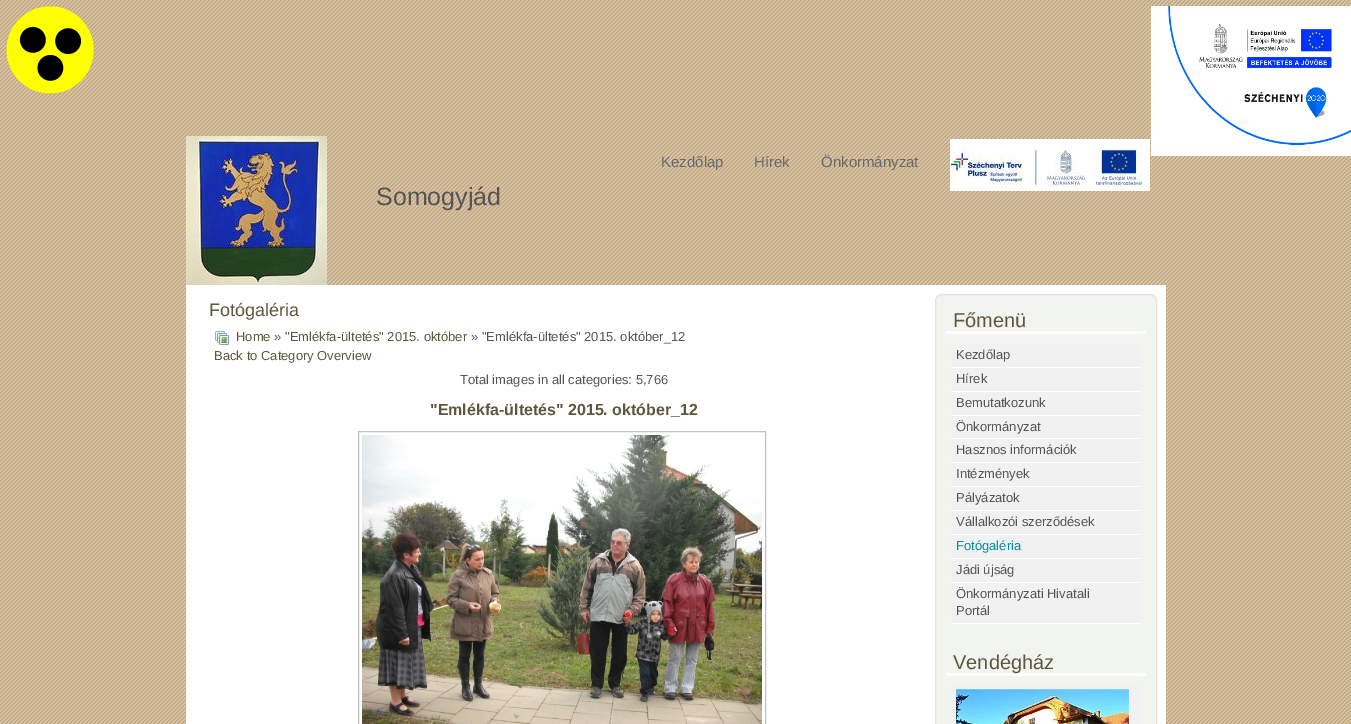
%!PS
<< /PageSize [1351 724] >> setpagedevice
/roundrect { 5 dict begin { /r /h /w /y /x } { exch def } forall
  x r add y moveto x w add y 2 copy h add r arct x w add y h add x 1 index r arct
  x y h add x y r arct x y 2 copy exch w add exch r arct closepath end } def
/picture { 5 dict begin { /h /w /y /x /name } { exch def } forall
  gsave x y translate w h scale
  w h 8 [w 0 0 h 0 0] name (r) file false 3 colorimage grestore end } def
0 724 translate 1 -1 scale
4 setmiterlimit
0.78 0.776 0.765 setrgbcolor
0 0 1351 724 rectfill
(img1.rgb) 0 0 1351 724 picture
(img2.rgb) 6 6 88 88 picture
(img3.rgb) 1151 6 200 150 picture
(img4.rgb) 186 136 141 149 picture
/LiberationSans-Regular [15 0 0 -15 0 0] selectfont
0.412 setgray
661 167 moveto (Kezdőlap) show
754 167 moveto (Hírek) show
821 167 moveto (Önkormányzat) show
(img5.rgb) 950 139 200 52 picture
/LiberationSans-Regular [25 0 0 -25 0 0] selectfont
0.333 setgray
376 205 moveto (Somogyjád) show
1 setgray
186 285 980 439 rectfill
/LiberationSans-Regular [18 0 0 -18 0 0] selectfont
0.369 0.341 0.243 setrgbcolor
209 316 moveto (Fotógaléria) show
(img6.rgb) 215 331 14 14 picture
/LiberationSans-Regular [13 0 0 -13 0 0] selectfont
236 341 moveto (Home) show
0.333 setgray
274 341 moveto (») show
0.369 0.341 0.243 setrgbcolor
285 341 moveto ("Emlékfa-ültetés" 2015. október) show
0.333 setgray
471 341 moveto (» "Emlékfa-ültetés" 2015. október_12) show
0.369 0.341 0.243 setrgbcolor
214 360 moveto (Back to Category Overview) show
0.333 setgray
460 384 moveto (Total images in all categories: 5,766) show
/LiberationSans-Bold [16 0 0 -16 0 0] selectfont
0.369 0.341 0.243 setrgbcolor
430 415 moveto ("Emlékfa-ültetés" 2015. október_12) show
0.753 setgray
358.5 431.5 407 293 rectstroke
(img7.rgb) 362 435 400 289 picture
0.949 0.957 0.937 setrgbcolor
935.5 294.5 221 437 6.5 roundrect gsave fill grestore
0.882 setgray
stroke
0.996 setgray
946 331 200 3 rectfill
/LiberationSans-Regular [20 0 0 -20 0 0] selectfont
0.369 0.341 0.243 setrgbcolor
953 327 moveto (Főmenü) show
0.945 setgray
951 344 190 23 rectfill
1 setgray
951 367 190 1 rectfill
/LiberationSans-Regular [13 0 0 -13 0 0] selectfont
0.333 setgray
956 359 moveto (Kezdőlap) show
0.945 setgray
951 368 190 23 rectfill
1 setgray
951 391 190 1 rectfill
0.333 setgray
956 383 moveto (Hírek) show
0.945 setgray
951 392 190 23 rectfill
1 setgray
951 415 190 1 rectfill
0.333 setgray
956 407 moveto (Bemutatkozunk) show
0.945 setgray
951 416 190 22 rectfill
1 setgray
951 438 190 1 rectfill
0.333 setgray
956 431 moveto (Önkormányzat) show
0.945 setgray
951 439 190 23 rectfill
1 setgray
951 462 190 1 rectfill
0.333 setgray
956 454 moveto (Hasznos információk) show
0.945 setgray
951 463 190 23 rectfill
1 setgray
951 486 190 1 rectfill
0.333 setgray
956 478 moveto (Intézmények) show
0.945 setgray
951 487 190 23 rectfill
1 setgray
951 510 190 1 rectfill
0.333 setgray
956 502 moveto (Pályázatok) show
0.945 setgray
951 511 190 23 rectfill
1 setgray
951 534 190 1 rectfill
0.333 setgray
956 526 moveto (Vállalkozói szerződések) show
0.945 setgray
951 535 190 23 rectfill
1 setgray
951 558 190 1 rectfill
0.02 0.549 0.631 setrgbcolor
956 550 moveto (Fotógaléria) show
0.945 setgray
951 559 190 23 rectfill
1 setgray
951 582 190 1 rectfill
0.333 setgray
956 574 moveto (Jádi újság) show
0.945 setgray
951 583 190 40 rectfill
1 setgray
951 623 190 1 rectfill
0.333 setgray
956 598 moveto (Önkormányzati Hivatali) show
956 615 moveto (Portál) show
0.996 setgray
946 673 200 3 rectfill
/LiberationSans-Regular [20 0 0 -20 0 0] selectfont
0.369 0.341 0.243 setrgbcolor
953 669 moveto (Vendégház) show
0.945 setgray
951 686 190 38 rectfill
(img8.rgb) 956 689 173 35 picture
showpage
